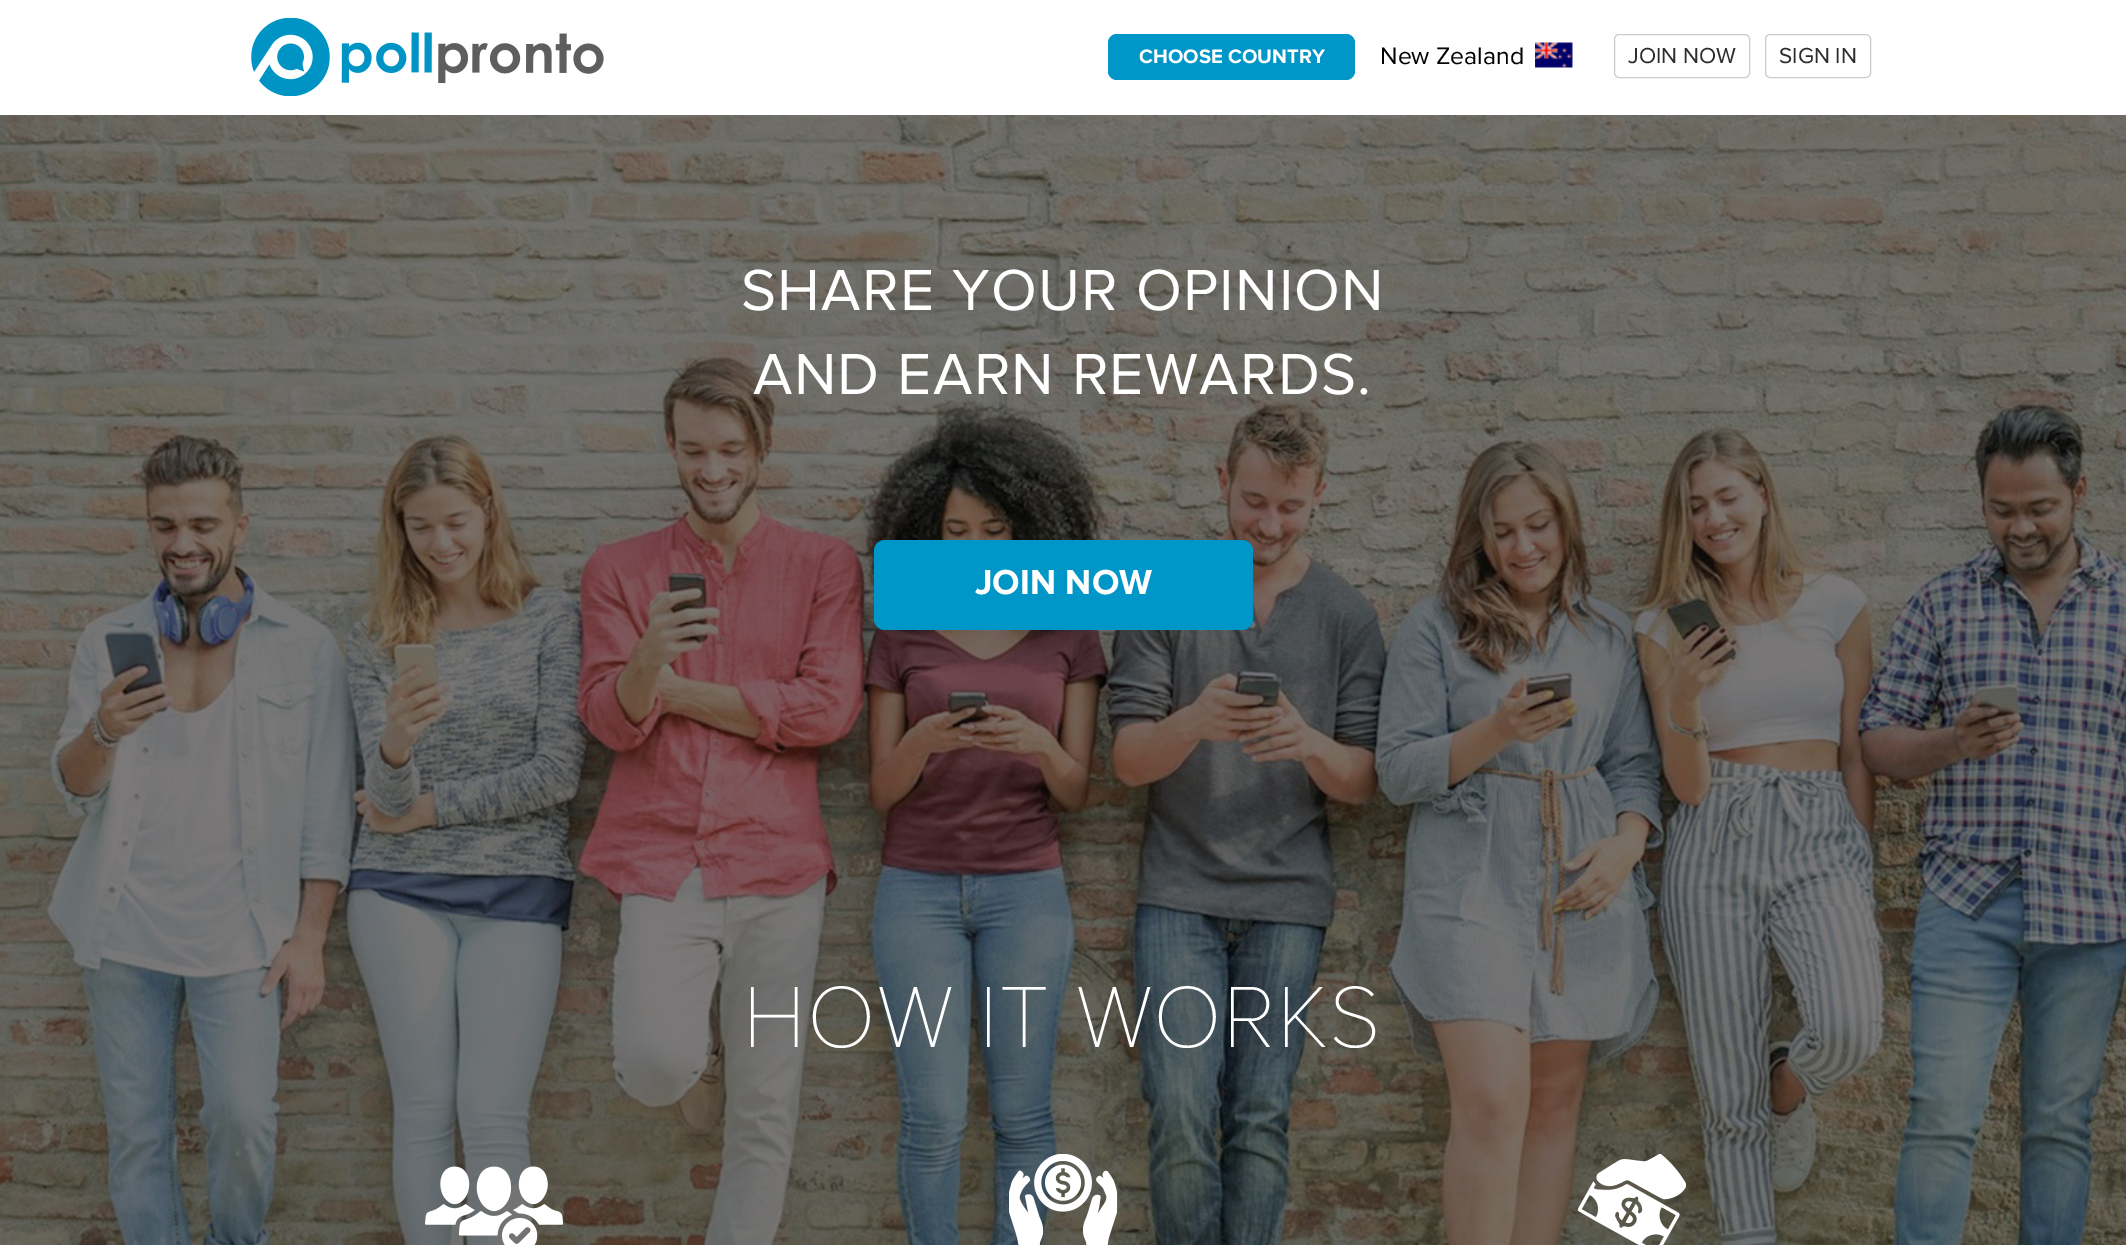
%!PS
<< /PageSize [2126 1245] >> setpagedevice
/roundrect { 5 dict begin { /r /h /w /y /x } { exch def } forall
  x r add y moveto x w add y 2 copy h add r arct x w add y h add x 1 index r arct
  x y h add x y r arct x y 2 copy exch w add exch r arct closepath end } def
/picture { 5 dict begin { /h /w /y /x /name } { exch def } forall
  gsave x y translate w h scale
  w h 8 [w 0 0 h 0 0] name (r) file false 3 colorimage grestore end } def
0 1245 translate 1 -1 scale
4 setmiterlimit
1 setgray
0 0 2126 1245 rectfill
(img1.rgb) 251 18 353 78 picture
0 0.588 0.78 setrgbcolor
1108 34 247 46 9 roundrect fill
/ProximaNova-Bold [20.25 0 0 -20.25 0 0] selectfont
1 setgray
1139 63 moveto (CHOOSE COUNTRY) show
/ProximaNova-Regular [24.75 0 0 -24.75 0 0] selectfont
0 0.004 0.004 setrgbcolor
1380 64 moveto (New Zealand) show
(img2.rgb) 1535 42 38 26 picture
0.8 setgray
1614.5 34.5 135 43 4.5 roundrect stroke
/ProximaNova-Regular [22.5 0 0 -22.5 0 0] selectfont
0.176 0.176 0.18 setrgbcolor
1628 63 moveto (JOIN NOW) show
0.8 setgray
1765.5 34.5 105 43 4.5 roundrect stroke
0.176 0.176 0.18 setrgbcolor
1779 63 moveto (SIGN IN) show
(img3.rgb) 0 115 2126 1130 picture
/ProximaNova-Regular [60 0 0 -60 0 0] selectfont
1 setgray
741 310 moveto 1.25 0 (SHARE YOUR OPINION) ashow
753 394 moveto 1.25 0 (AND EARN REWARDS.) ashow
0 0.588 0.78 setrgbcolor
874 540 379 90 11 roundrect fill
/ProximaNova-Bold [36 0 0 -36 0 0] selectfont
1 setgray
975 594 moveto (JOIN NOW) show
/ProximaNova-Thin [90 0 0 -90 0 0] selectfont
743 1047 moveto 1.25 0 (HOW IT WORKS) ashow
(img4.rgb) 425 1166 138 79 picture
(img5.rgb) 1009 1154 109 91 picture
(img6.rgb) 1578 1154 108 91 picture
showpage
